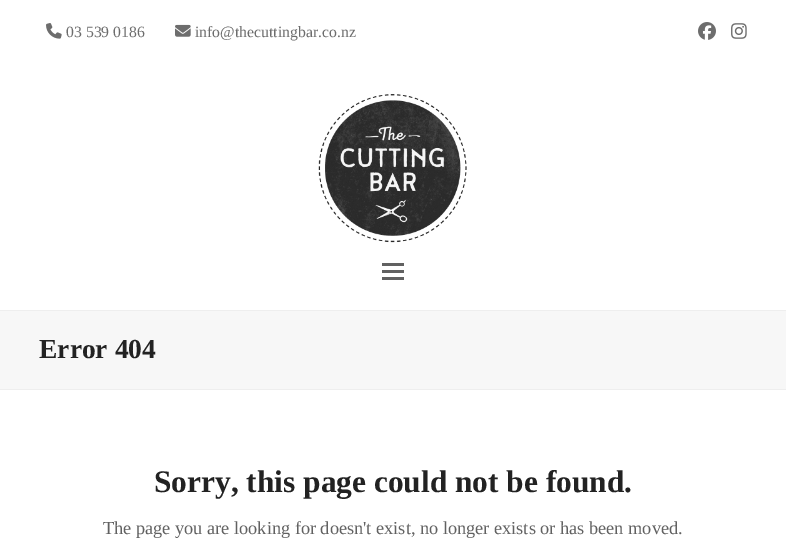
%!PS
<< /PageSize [786 560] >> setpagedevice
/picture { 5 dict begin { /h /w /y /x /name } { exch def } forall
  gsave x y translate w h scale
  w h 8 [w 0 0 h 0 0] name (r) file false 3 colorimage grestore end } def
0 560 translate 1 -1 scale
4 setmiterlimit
1 setgray
0 0 786 560 rectfill
(img1.rgb) 46 23 16 16 picture
/LiberationSerif-Regular [15.75 0 0 -15.75 0 0] selectfont
0.427 setgray
66 37 moveto (03 539 0186) show
(img2.rgb) 175 24 16 13 picture
195 37 moveto (info@thecuttingbar.co.nz) show
(img3.rgb) 698 22 18 18 picture
(img4.rgb) 731 23 16 16 picture
(img5.rgb) 318 94 149 149 picture
0.38 setgray
382 270 22 3 rectfill
382 263 22 3 rectfill
382 277 22 3 rectfill
0.969 setgray
0 311 786 78 rectfill
0.933 setgray
0 310 786 1 rectfill
0 389 786 1 rectfill
/LiberationSerif-Bold [27.5 0 0 -27.5 0 0] selectfont
0.133 setgray
39 358 moveto (Error 404) show
/LiberationSerif-Bold [31.4 0 0 -31.4 0 0] selectfont
154 492 moveto (Sorry, this page could not be found.) show
/LiberationSerif-Regular [18.3 0 0 -18.3 0 0] selectfont
0.38 setgray
103 534 moveto (The page you are looking for doesn't exist, no longer exists or has been moved.) show
showpage
